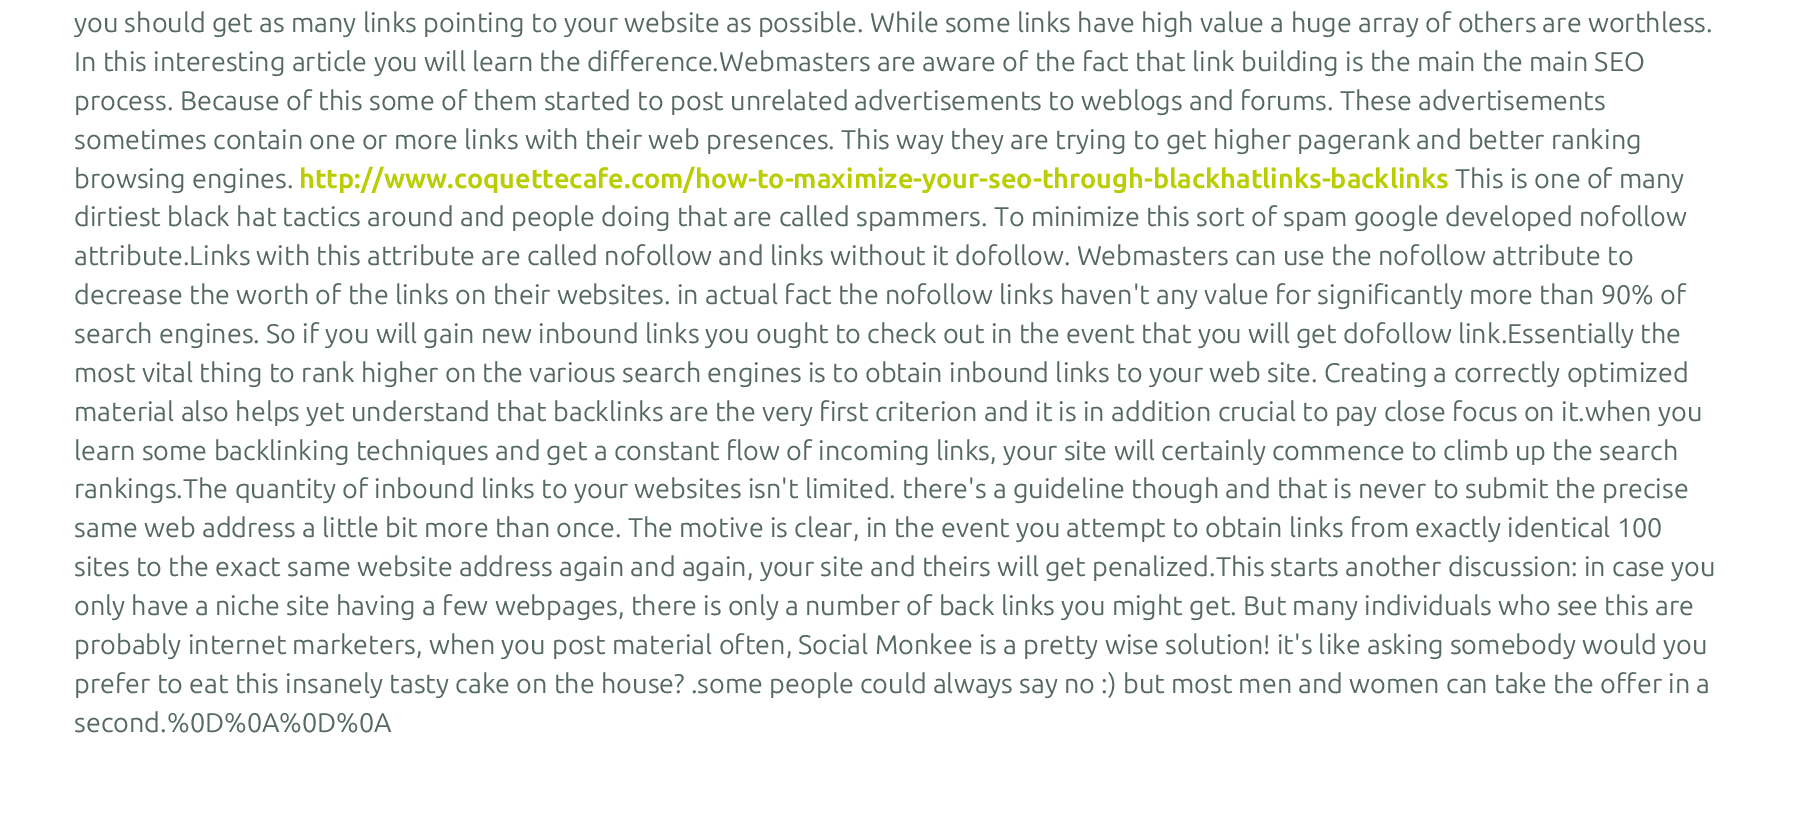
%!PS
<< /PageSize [1796 813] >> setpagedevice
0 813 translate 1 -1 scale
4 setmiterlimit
1 setgray
0 0 1796 813 rectfill
/Ubuntu-Regular [27 0 0 -27 0 0] selectfont
0.333 0.408 0.392 setrgbcolor
74 32 moveto (you should get as many links pointing to your website as possible. While some links have high value a huge array of others are worthless.) show
74 71 moveto (In this interesting article you will learn the difference.Webmasters are aware of the fact that link building is the main the main SEO) show
74 110 moveto (process. Because of this some of them started to post unrelated advertisements to weblogs and forums. These advertisements) show
74 149 moveto (sometimes contain one or more links with their web presences. This way they are trying to get higher pagerank and better ranking) show
74 188 moveto (browsing engines.) show
/Ubuntu-Bold [27 0 0 -27 0 0] selectfont
0.725 0.804 0 setrgbcolor
299 188 moveto (http://www.coquettecafe.com/how-to-maximize-your-seo-through-blackhatlinks-backlinks) show
/Ubuntu-Regular [27 0 0 -27 0 0] selectfont
0.333 0.408 0.392 setrgbcolor
1455 188 moveto (This is one of many) show
74 226 moveto (dirtiest black hat tactics around and people doing that are called spammers. To minimize this sort of spam google developed nofollow) show
74 265 moveto (attribute.Links with this attribute are called nofollow and links without it dofollow. Webmasters can use the nofollow attribute to) show
74 304 moveto (decrease the worth of the links on their websites. in actual fact the nofollow links haven't any value for significantly more than 90% of) show
74 343 moveto (search engines. So if you will gain new inbound links you ought to check out in the event that you will get dofollow link.Essentially the) show
74 382 moveto (most vital thing to rank higher on the various search engines is to obtain inbound links to your web site. Creating a correctly optimized) show
74 421 moveto (material also helps yet understand that backlinks are the very first criterion and it is in addition crucial to pay close focus on it.when you) show
74 460 moveto (learn some backlinking techniques and get a constant flow of incoming links, your site will certainly commence to climb up the search) show
74 498 moveto (rankings.The quantity of inbound links to your websites isn't limited. there's a guideline though and that is never to submit the precise) show
74 537 moveto (same web address a little bit more than once. The motive is clear, in the event you attempt to obtain links from exactly identical 100) show
74 576 moveto (sites to the exact same website address again and again, your site and theirs will get penalized.This starts another discussion: in case you) show
74 615 moveto (only have a niche site having a few webpages, there is only a number of back links you might get. But many individuals who see this are) show
74 654 moveto (probably internet marketers, when you post material often, Social Monkee is a pretty wise solution! it's like asking somebody would you) show
74 693 moveto (prefer to eat this insanely tasty cake on the house? .some people could always say no :\) but most men and women can take the offer in a) show
74 732 moveto (second.%0D%0A%0D%0A) show
showpage
